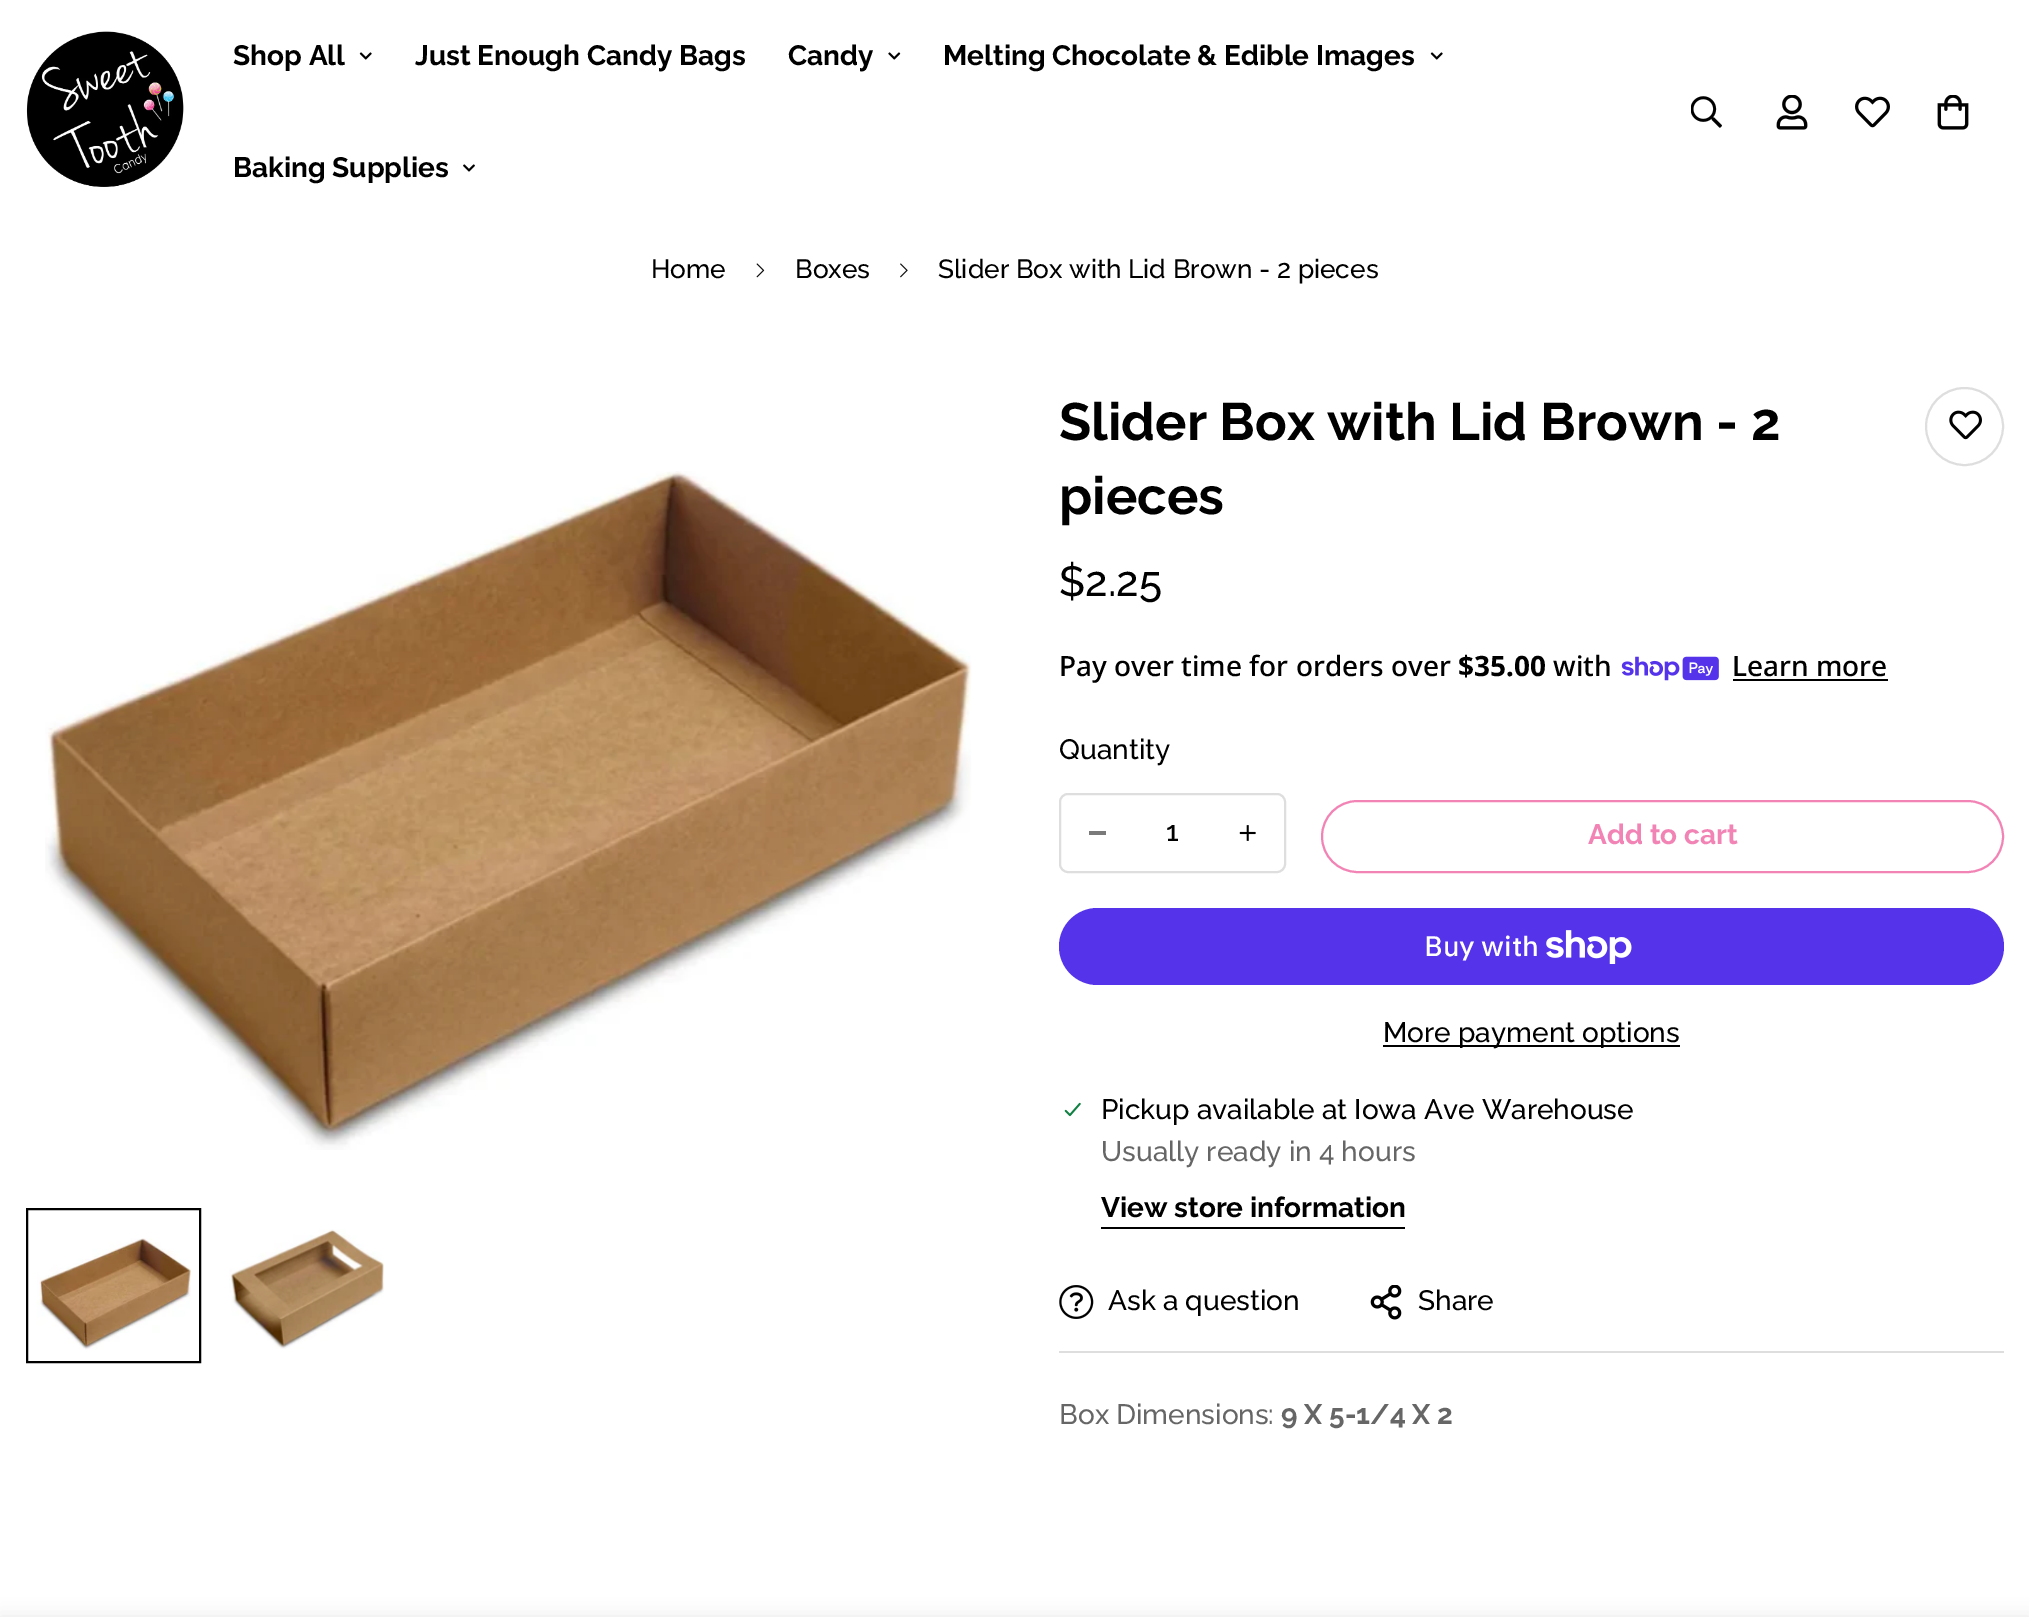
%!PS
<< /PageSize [2029 1617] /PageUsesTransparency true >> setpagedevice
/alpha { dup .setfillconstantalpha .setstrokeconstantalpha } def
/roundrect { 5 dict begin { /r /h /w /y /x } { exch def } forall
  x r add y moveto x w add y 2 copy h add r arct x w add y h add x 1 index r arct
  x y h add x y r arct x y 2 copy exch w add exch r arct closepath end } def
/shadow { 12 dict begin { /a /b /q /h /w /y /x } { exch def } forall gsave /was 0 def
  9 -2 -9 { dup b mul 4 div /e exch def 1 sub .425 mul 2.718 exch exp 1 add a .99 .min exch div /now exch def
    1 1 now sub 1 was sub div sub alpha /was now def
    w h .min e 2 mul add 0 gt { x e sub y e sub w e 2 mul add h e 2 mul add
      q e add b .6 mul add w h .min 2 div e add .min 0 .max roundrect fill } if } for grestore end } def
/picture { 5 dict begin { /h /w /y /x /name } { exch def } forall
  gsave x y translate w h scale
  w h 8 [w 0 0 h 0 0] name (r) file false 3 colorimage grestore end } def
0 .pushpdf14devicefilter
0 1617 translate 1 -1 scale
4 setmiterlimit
1 setgray
0 0 2029 1617 rectfill
(img1.rgb) 26 31 158 156 picture
/Raleway-Bold [28 0 0 -28 0 0] selectfont
0 setgray
233 65 moveto (Shop All) show
(img2.rgb) 359 52 13 8 picture
415 65 moveto (Just Enough Candy Bags) show
788 65 moveto (Candy) show
(img3.rgb) 888 52 13 8 picture
943 65 moveto (Melting Chocolate & Edible Images) show
(img2.rgb) 1430 52 13 8 picture
233 177 moveto (Baking Supplies) show
(img4.rgb) 463 164 12 8 picture
(img5.rgb) 1691 96 31 32 picture
(img6.rgb) 1776 95 32 35 picture
(img7.rgb) 1855 96 35 32 picture
(img8.rgb) 1937 95 32 35 picture
/Raleway-Medium [26.25 0 0 -26.25 0 0] selectfont
651 278 moveto (Home) show
(img9.rgb) 756 263 9 15 picture
795 278 moveto (Boxes) show
(img10.rgb) 900 263 8 15 picture
938 278 moveto (Slider Box with Lid Brown - 2 pieces) show
(img11.rgb) 45 471 927 679 picture
2 setlinewidth
27 1209 173 153 rectstroke
(img12.rgb) 37 1238 154 112 picture
(img13.rgb) 229 1229 155 120 picture
/Raleway-Bold [52.5 0 0 -52.5 0 0] selectfont
1059 440 moveto (Slider Box with Lid Brown - 2) show
1059 514 moveto (pieces) show
0.871 setgray
newpath 1964.5 426.5 38.5 0 360 arc closepath stroke
(img14.rgb) 1949 410 33 30 picture
/Raleway-Medium [42 0 0 -42 0 0] selectfont
0 setgray
1059 596 moveto ($2.25) show
/NotoSans-Medium [28 0 0 -28 0 0] selectfont
1059 676 moveto (Pay over time for orders over) show
/NotoSans-Bold [28 0 0 -28 0 0] selectfont
1458 676 moveto ($35.00) show
/NotoSans-Medium [28 0 0 -28 0 0] selectfont
1553 676 moveto (with) show
(img15.rgb) 1621 656 98 25 picture
1732 676 moveto (Learn more) show
1733 679 155 2 rectfill
/Raleway-Medium [28 0 0 -28 0 0] selectfont
1059 759 moveto (Quantity) show
0.871 setgray
1060 794 225 78 8 roundrect stroke
0.478 setgray
1089 831 17 4 rectfill
0 setgray
1166 841 moveto (1) show
(img16.rgb) 1239 825 17 16 picture
0.949 0.518 0.71 setrgbcolor
1322 801 681 71 35.5 roundrect stroke
/Raleway-Bold [28 0 0 -28 0 0] selectfont
1588 844 moveto (Add to cart) show
0.329 0.2 0.922 setrgbcolor
1059 908 945 77 38.5 roundrect fill
/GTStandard-Medium [28 0 0 -28 0 0] selectfont
1 setgray
1424 956 moveto (Buy with) show
(img17.rgb) 1546 930 86 34 picture
0 setgray
1383 1045 297 2 rectfill
/Raleway-Medium [28 0 0 -28 0 0] selectfont
1383 1042 moveto (More payment options) show
(img18.rgb) 1064 1102 17 15 picture
1101 1119 moveto (Pickup available at Iowa Ave Warehouse) show
0.4 setgray
1101 1161 moveto (Usually ready in 4 hours) show
/Raleway-Bold [28 0 0 -28 0 0] selectfont
0 setgray
1101 1217 moveto (View store information) show
1101 1227 304 2 rectfill
0.871 setgray
1059 1351 945 2 rectfill
(img19.rgb) 1059 1285 35 34 picture
/Raleway-Medium [28 0 0 -28 0 0] selectfont
0 setgray
1108 1310 moveto (Ask a question) show
(img20.rgb) 1370 1285 32 35 picture
1418 1310 moveto (Share) show
0.4 setgray
1059 1424 moveto (Box Dimensions:) show
/Raleway-Bold [28 0 0 -28 0 0] selectfont
1281 1424 moveto (9 X 5-1/4 X 2) show
0 setgray
0 1617 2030 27 0 9 0.09 shadow
.poppdf14devicefilter showpage
